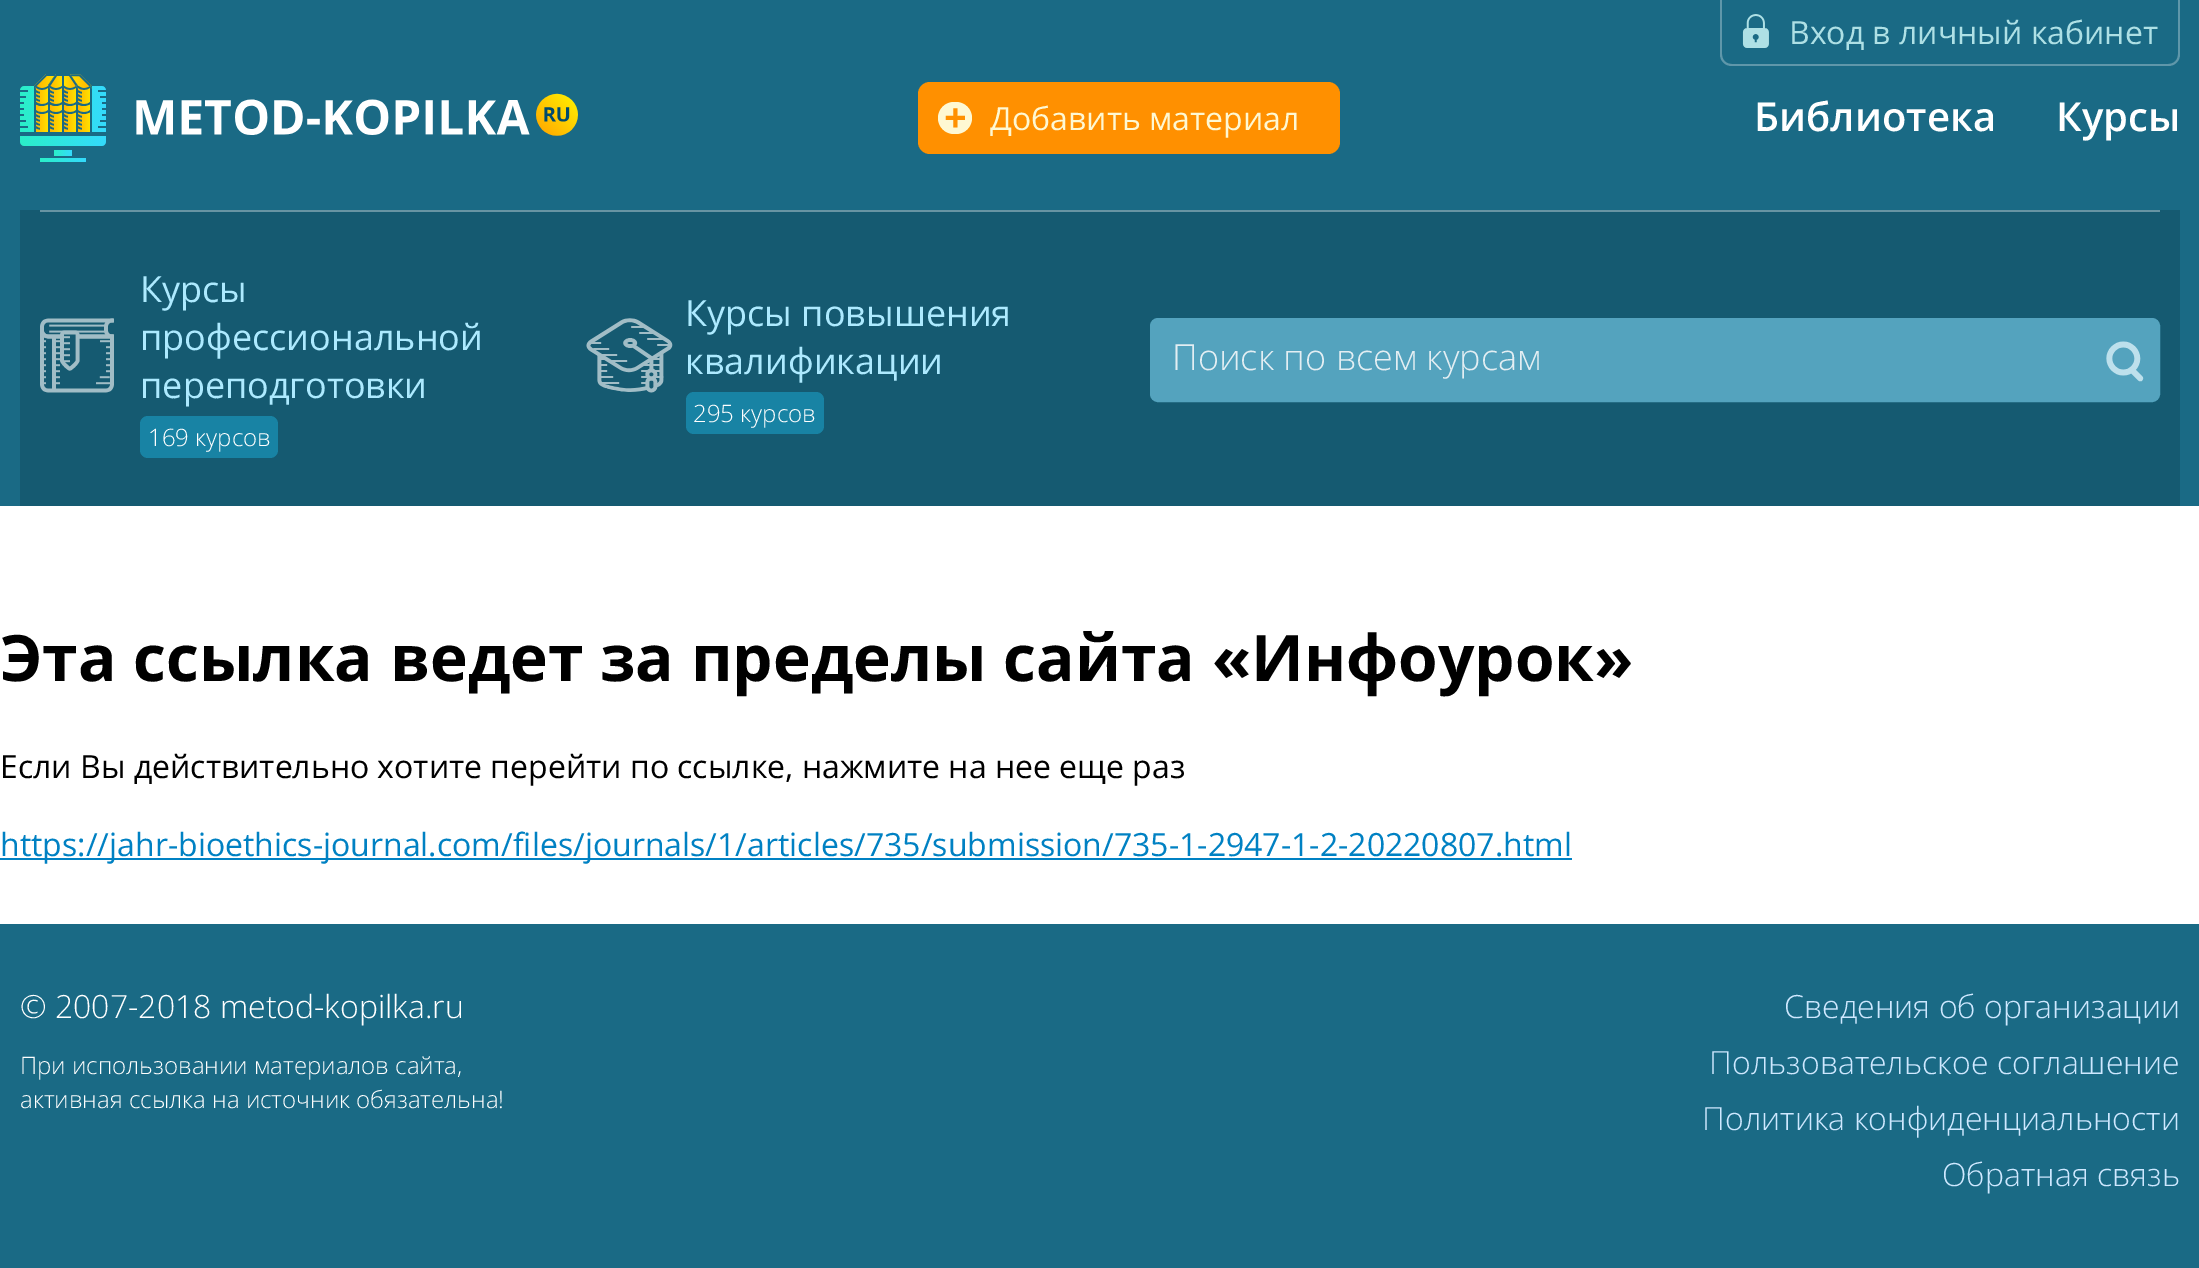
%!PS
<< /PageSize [2199 1268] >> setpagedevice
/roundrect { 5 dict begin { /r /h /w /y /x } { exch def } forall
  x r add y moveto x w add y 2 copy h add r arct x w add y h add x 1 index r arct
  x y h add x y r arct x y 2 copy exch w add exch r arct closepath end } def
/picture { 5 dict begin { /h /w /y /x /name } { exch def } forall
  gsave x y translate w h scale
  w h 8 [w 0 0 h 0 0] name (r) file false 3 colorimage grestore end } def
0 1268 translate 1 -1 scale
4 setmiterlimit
1 setgray
0 0 2199 1268 rectfill
0.102 0.416 0.522 setrgbcolor
0 0 2199 506 rectfill
0.373 0.592 0.667 setrgbcolor
newpath 1720 0 moveto 2180 0 lineto 2180 54 lineto 2180 61 2175 66 2168 66 curveto 1732 66 lineto 1725 66 1720 61 1720 54 curveto closepath 1722 0 moveto 2178 0 lineto 2178 54 lineto 2178 60 2174 64 2168 64 curveto 1732 64 lineto 1726 64 1722 60 1722 54 curveto closepath eofill
(img1.rgb) 1742 14 27 34 picture
/OpenSans-Regular [32 0 0 -32 0 0] selectfont
0.682 0.878 0.898 setrgbcolor
1789 44 moveto (Вход в личный кабинет) show
(img2.rgb) 20 74 558 88 picture
1 0.565 0 setrgbcolor
918 82 422 72 12 roundrect fill
0.996 0.973 0.827 setrgbcolor
938 102 34 32 16 roundrect fill
/OpenSans-Bold [40 0 0 -40 0 0] selectfont
1 0.565 0 setrgbcolor
944 132 moveto (+) show
/OpenSans-Regular [32 0 0 -32 0 0] selectfont
0.996 0.973 0.827 setrgbcolor
990 130 moveto (Добавить материал) show
/OpenSans-SemiBold [40 0 0 -40 0 0] selectfont
1 setgray
1754 131 moveto (Библиотека) show
2056 131 moveto (Курсы) show
0.082 0.353 0.443 setrgbcolor
20 210 2160 296 rectfill
0.404 0.58 0.639 setrgbcolor
40 210 2120 2 rectfill
(img3.rgb) 40 318 74 75 picture
/OpenSans-Regular [36 0 0 -36 0 0] selectfont
0.678 0.918 1 setrgbcolor
140 302 moveto (Курсы) show
140 350 moveto (профессиональной) show
140 398 moveto (переподготовки) show
0.094 0.514 0.643 setrgbcolor
140 416 138 42 8 roundrect fill
/OpenSans-Light [24 0 0 -24 0 0] selectfont
1 setgray
148 446 moveto (169 курсов) show
(img4.rgb) 586 318 87 75 picture
/OpenSans-Regular [36 0 0 -36 0 0] selectfont
0.678 0.918 1 setrgbcolor
685 326 moveto (Курсы повышения) show
685 374 moveto (квалификации) show
0.094 0.514 0.643 setrgbcolor
686 392 138 42 8 roundrect fill
/OpenSans-Light [24 0 0 -24 0 0] selectfont
1 setgray
693 422 moveto (295 курсов) show
0.329 0.639 0.745 setrgbcolor
1151 319 1008 82 7 roundrect gsave fill grestore
2 setlinewidth
stroke
/OpenSans-Light [36 0 0 -36 0 0] selectfont
0.89 0.933 0.953 setrgbcolor
1172 370 moveto (Поиск по всем курсам) show
(img5.rgb) 2106 341 38 41 picture
/OpenSans-Bold [64 0 0 -64 0 0] selectfont
0 setgray
0 681 moveto (Эта ссылка ведет за пределы сайта «Инфоурок») show
/OpenSans-Regular [32 0 0 -32 0 0] selectfont
0 778 moveto (Если Вы действительно хотите перейти по ссылке, нажмите на нее еще раз) show
0 0.506 0.765 setrgbcolor
0 858 1572 2 rectfill
0 856 moveto (https://jahr-bioethics-journal.com/files/journals/1/articles/735/submission/735-1-2947-1-2-20220807.html) show
0.102 0.416 0.522 setrgbcolor
0 924 2199 344 rectfill
/OpenSans-Light [32 0 0 -32 0 0] selectfont
1 setgray
20 1018 moveto (© 2007-2018 metod-kopilka.ru) show
/OpenSans-Light [24 0 0 -24 0 0] selectfont
20 1074 moveto (При использовании материалов сайта,) show
20 1108 moveto (активная ссылка на источник обязательна!) show
/OpenSans-Light [32 0 0 -32 0 0] selectfont
0.808 0.91 1 setrgbcolor
1784 1018 moveto (Сведения об организации) show
1709 1074 moveto (Пользовательское соглашение) show
1702 1130 moveto (Политика конфиденциальности) show
1942 1186 moveto (Обратная связь) show
showpage
